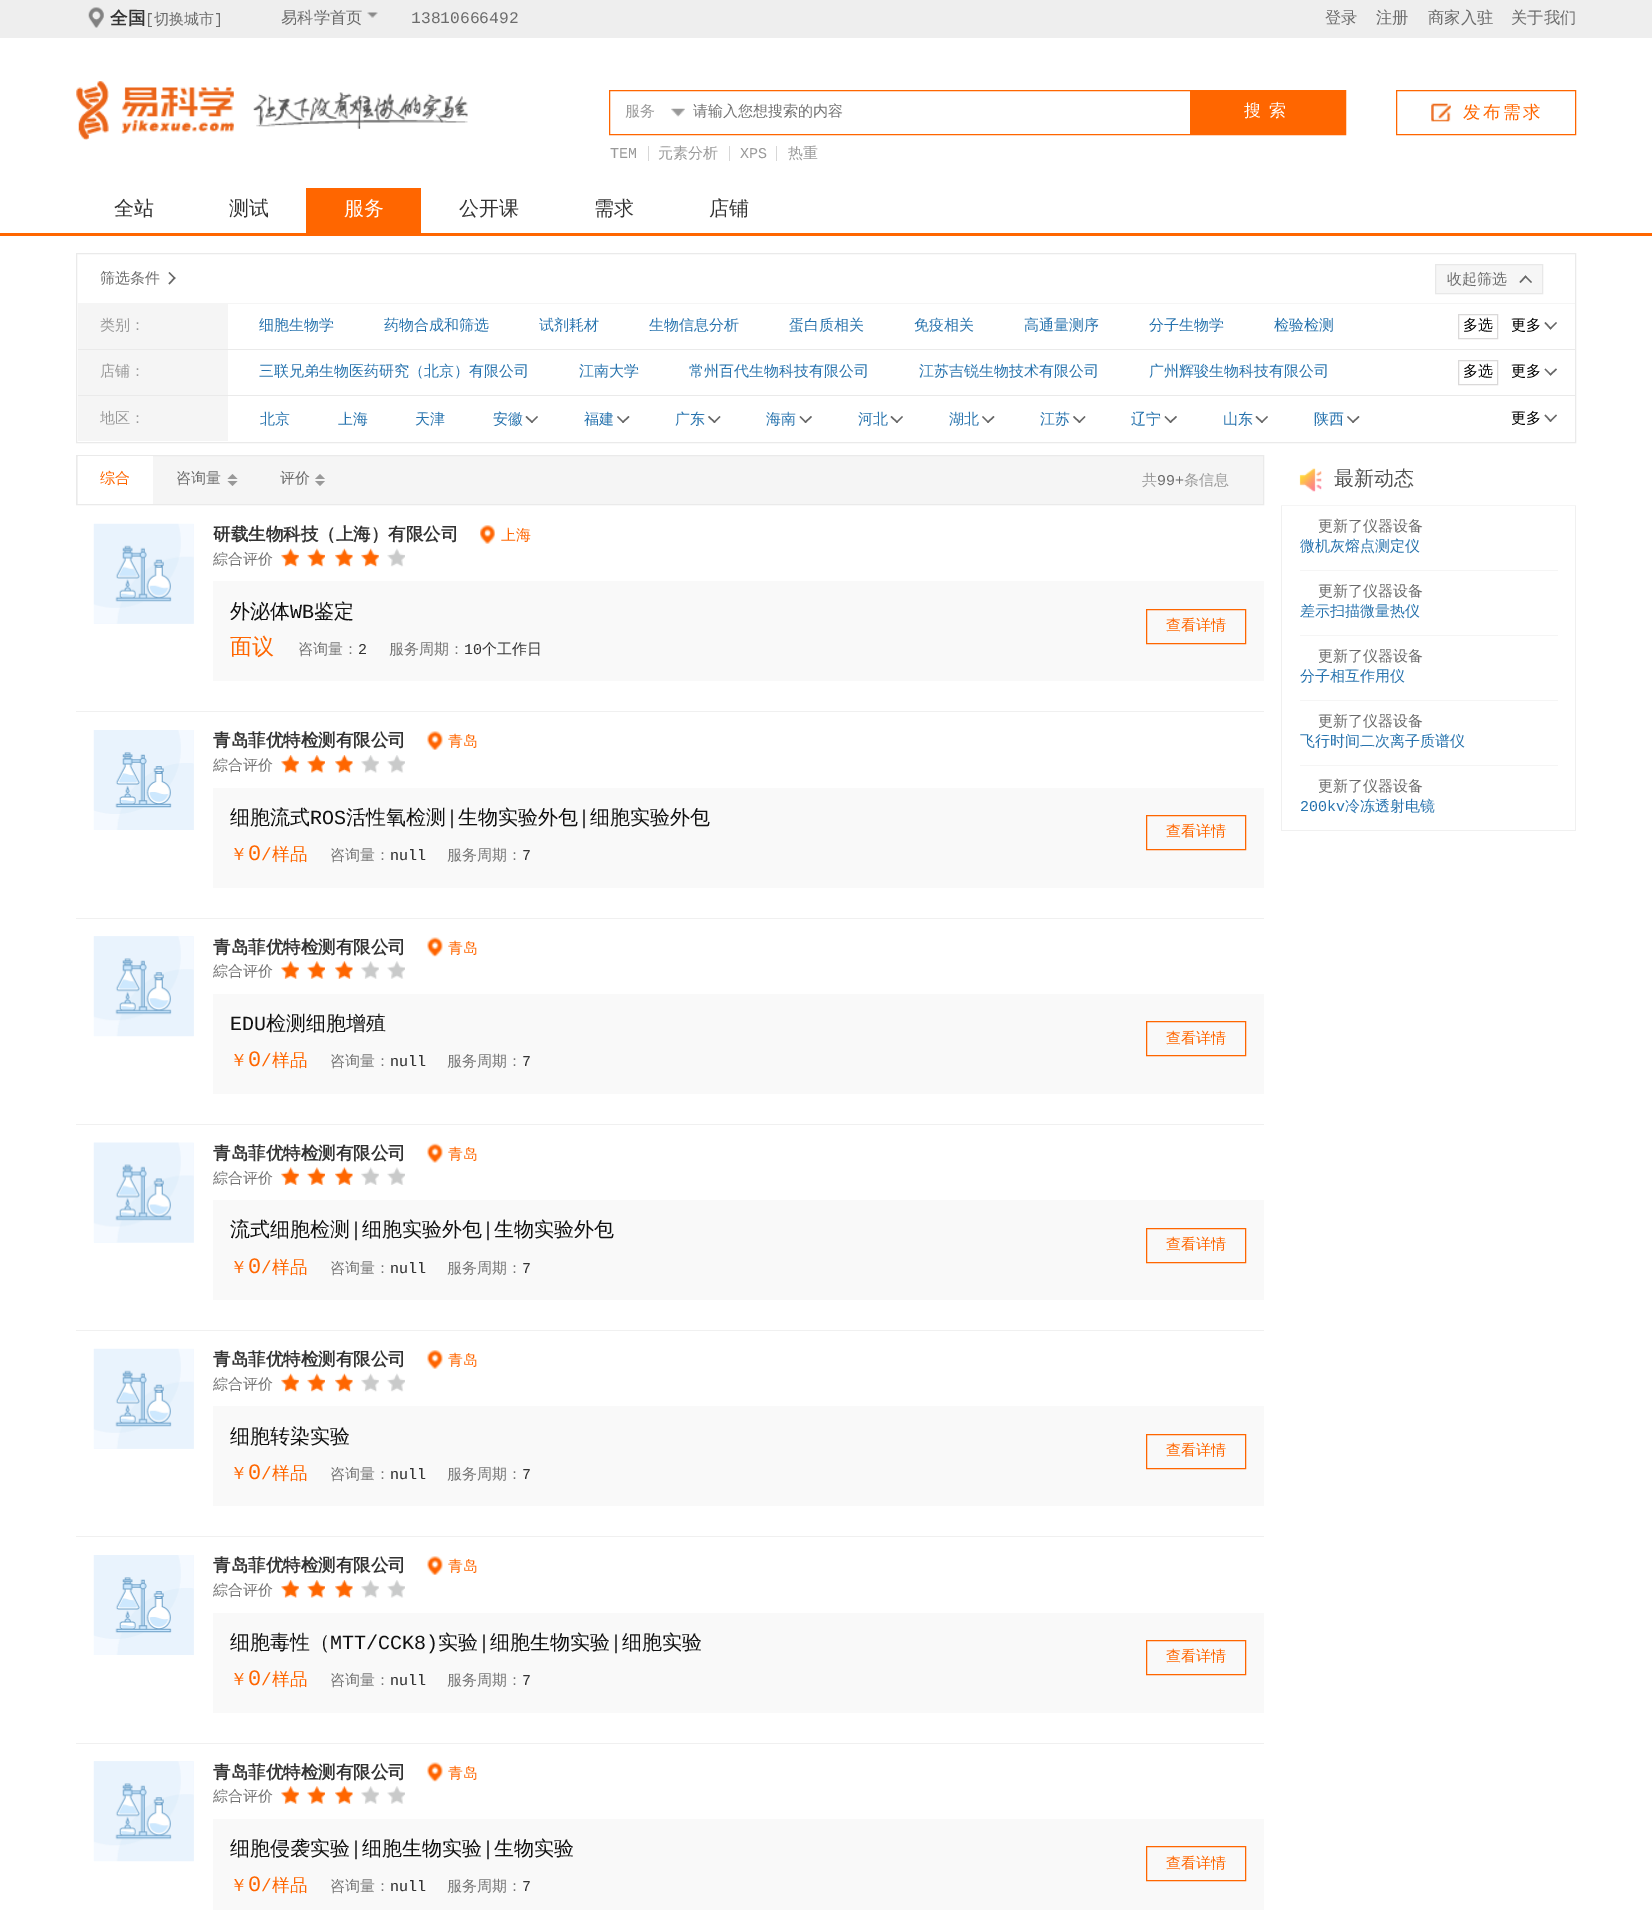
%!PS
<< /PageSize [1652 1910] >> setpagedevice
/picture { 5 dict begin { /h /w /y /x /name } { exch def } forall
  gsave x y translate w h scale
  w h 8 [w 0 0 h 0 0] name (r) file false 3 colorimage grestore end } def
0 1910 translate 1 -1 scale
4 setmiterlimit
1 setgray
0 0 1652 1910 rectfill
0.933 setgray
0 0 1652 38 rectfill
(img1.rgb) 88 7 16 21 picture
/WenQuanYiZenHei-Bold [17.5 0 0 -17.5 0 0] selectfont
0.2 setgray
110 24 moveto (全国) show
/LiberationMono-Regular [15 0 0 -15 0 0] selectfont
0.42 setgray
145 24 moveto ([) show
/WenQuanYiZenHei-Medium [15 0 0 -15 0 0] selectfont
154 24 moveto (切换城市) show
/LiberationMono-Regular [15 0 0 -15 0 0] selectfont
214 24 moveto (]) show
/WenQuanYiZenHei-Medium [16.25 0 0 -16.25 0 0] selectfont
281 23 moveto (易科学首页) show
(img2.rgb) 367 12 11 6 picture
/LiberationMono-Regular [16.25 0 0 -16.25 0 0] selectfont
411 23 moveto (13810666492) show
/WenQuanYiZenHei-Medium [16.25 0 0 -16.25 0 0] selectfont
1325 23 moveto (登录) show
1376 23 moveto (注册) show
1428 23 moveto (商家入驻) show
1511 23 moveto (关于我们) show
(img3.rgb) 76 81 392 59 picture
1 0.4 0 setrgbcolor
609.5 90.5 736 44 rectstroke
(img4.rgb) 671 108 14 9 picture
/WenQuanYiZenHei-Medium [15 0 0 -15 0 0] selectfont
0.6 setgray
625 116 moveto (服务) show
0.451 setgray
693 116 moveto (请输入您想搜索的内容) show
1 0.4 0 setrgbcolor
1190 91 155 43 rectfill
/WenQuanYiZenHei-Medium [17 0 0 -17 0 0] selectfont
1 setgray
1244 116 moveto 8 0 (搜索) ashow
0.843 setgray
648 146 1 15 rectfill
/LiberationMono-Regular [15 0 0 -15 0 0] selectfont
0.6 setgray
610 158 moveto (TEM) show
0.843 setgray
729 146 1 15 rectfill
/WenQuanYiZenHei-Medium [15 0 0 -15 0 0] selectfont
0.6 setgray
658 158 moveto (元素分析) show
0.843 setgray
776 146 1 15 rectfill
/LiberationMono-Regular [15 0 0 -15 0 0] selectfont
0.6 setgray
740 158 moveto (XPS) show
/WenQuanYiZenHei-Medium [15 0 0 -15 0 0] selectfont
788 158 moveto (热重) show
1 0.4 0 setrgbcolor
1396.5 90.5 179 44 rectstroke
(img5.rgb) 1431 103 20 19 picture
/WenQuanYiZenHei-Medium [17.5 0 0 -17.5 0 0] selectfont
1463 118 moveto 2.5 0 (发布需求) ashow
0 233 1652 3 rectfill
/WenQuanYiZenHei-Medium [20 0 0 -20 0 0] selectfont
0.2 setgray
114 215 moveto (全站) show
229 215 moveto (测试) show
1 0.4 0 setrgbcolor
306 188 115 45 rectfill
1 setgray
344 215 moveto (服务) show
0.2 setgray
459 215 moveto (公开课) show
594 215 moveto (需求) show
709 215 moveto (店铺) show
0.918 setgray
76.5 253.5 1499 189 rectstroke
/WenQuanYiZenHei-Medium [15 0 0 -15 0 0] selectfont
0.42 setgray
100 283 moveto (筛选条件) show
0.4 setgray
newpath 174.5 279 moveto 168.5 273 lineto 169.5 272 lineto 175.5 278 lineto closepath fill
newpath 169.5 284.5 moveto 168.5 283.5 lineto 174.5 277 lineto 175.5 278 lineto closepath fill
0.965 setgray
newpath 1435.5 264.5 moveto 1542.5 264.5 lineto 1542.5 293.5 lineto 1435.5 293.5 lineto closepath gsave fill grestore
0.91 setgray
stroke
0.42 setgray
1447 284 moveto (收起筛选) show
0.4 setgray
newpath 1520.5 283 moveto 1519.5 282 lineto 1525.5 275.5 lineto 1526.5 276.5 lineto closepath fill
newpath 1531 283 moveto 1524.5 276.5 lineto 1525.5 275.5 lineto 1532 282 lineto closepath fill
0.961 setgray
78 303 1497 1 rectfill
78 304 150 45 rectfill
0.6 setgray
100 330 moveto (类别：) show
0.153 0.451 0.682 setrgbcolor
259 330 moveto (细胞生物学) show
384 330 moveto (药物合成和筛选) show
539 330 moveto (试剂耗材) show
649 330 moveto (生物信息分析) show
789 330 moveto (蛋白质相关) show
914 330 moveto (免疫相关) show
1024 330 moveto (高通量测序) show
1149 330 moveto (分子生物学) show
1274 330 moveto (检验检测) show
0.855 0.851 0.851 setrgbcolor
1458.5 314.5 39 24 rectstroke
0 setgray
1463 330 moveto (多选) show
1511 330 moveto (更多) show
0.4 setgray
newpath 1556 322 moveto 1557 323 lineto 1550.5 329.5 lineto 1549.5 328.5 lineto closepath fill
newpath 1545.5 322 moveto 1551.5 328.5 lineto 1550.5 329.5 lineto 1544.5 323 lineto closepath fill
0.918 setgray
78 349 1497 1 rectfill
0.961 setgray
78 350 150 45 rectfill
0.6 setgray
100 376 moveto (店铺：) show
0.153 0.451 0.682 setrgbcolor
259 376 moveto (三联兄弟生物医药研究（北京）有限公司) show
579 376 moveto (江南大学) show
689 376 moveto (常州百代生物科技有限公司) show
919 376 moveto (江苏吉锐生物技术有限公司) show
1149 376 moveto (广州辉骏生物科技有限公司) show
0.855 0.851 0.851 setrgbcolor
1458.5 360.5 39 24 rectstroke
0 setgray
1463 376 moveto (多选) show
1511 376 moveto (更多) show
0.4 setgray
newpath 1556 368.5 moveto 1557 369.5 lineto 1550.5 375.5 lineto 1549.5 374.5 lineto closepath fill
newpath 1545.5 368.5 moveto 1551.5 374.5 lineto 1550.5 375.5 lineto 1544.5 369.5 lineto closepath fill
0.918 setgray
78 395 1497 1 rectfill
0.961 setgray
78 396 150 45 rectfill
0.6 setgray
100 423 moveto (地区：) show
0.153 0.451 0.682 setrgbcolor
260 424 moveto (北京) show
338 424 moveto (上海) show
415 424 moveto (天津) show
493 424 moveto (安徽) show
0.4 setgray
newpath 537 416 moveto 538 417 lineto 532 423 lineto 531 422 lineto closepath fill
newpath 526.5 416 moveto 533 422 lineto 532 423 lineto 525.5 417 lineto closepath fill
0.153 0.451 0.682 setrgbcolor
584 424 moveto (福建) show
0.4 setgray
newpath 628.5 416 moveto 629.5 417 lineto 623 423 lineto 622 422 lineto closepath fill
newpath 618 416 moveto 624 422 lineto 623 423 lineto 617 417 lineto closepath fill
0.153 0.451 0.682 setrgbcolor
675 424 moveto (广东) show
0.4 setgray
newpath 719.5 416 moveto 720.5 417 lineto 714.5 423 lineto 713.5 422 lineto closepath fill
newpath 709 416 moveto 715.5 422 lineto 714.5 423 lineto 708 417 lineto closepath fill
0.153 0.451 0.682 setrgbcolor
766 424 moveto (海南) show
0.4 setgray
newpath 811 416 moveto 812 417 lineto 805.5 423 lineto 804.5 422 lineto closepath fill
newpath 800.5 416 moveto 806.5 422 lineto 805.5 423 lineto 799.5 417 lineto closepath fill
0.153 0.451 0.682 setrgbcolor
858 424 moveto (河北) show
0.4 setgray
newpath 902 416 moveto 903 417 lineto 897 423 lineto 896 422 lineto closepath fill
newpath 891.5 416 moveto 898 422 lineto 897 423 lineto 890.5 417 lineto closepath fill
0.153 0.451 0.682 setrgbcolor
949 424 moveto (湖北) show
0.4 setgray
newpath 993.5 416 moveto 994.5 417 lineto 988 423 lineto 987 422 lineto closepath fill
newpath 983 416 moveto 989 422 lineto 988 423 lineto 982 417 lineto closepath fill
0.153 0.451 0.682 setrgbcolor
1040 424 moveto (江苏) show
0.4 setgray
newpath 1084.5 416 moveto 1085.5 417 lineto 1079.5 423 lineto 1078.5 422 lineto closepath fill
newpath 1074 416 moveto 1080.5 422 lineto 1079.5 423 lineto 1073 417 lineto closepath fill
0.153 0.451 0.682 setrgbcolor
1131 424 moveto (辽宁) show
0.4 setgray
newpath 1176 416 moveto 1177 417 lineto 1170.5 423 lineto 1169.5 422 lineto closepath fill
newpath 1165.5 416 moveto 1171.5 422 lineto 1170.5 423 lineto 1164.5 417 lineto closepath fill
0.153 0.451 0.682 setrgbcolor
1223 424 moveto (山东) show
0.4 setgray
newpath 1267 416 moveto 1268 417 lineto 1262 423 lineto 1261 422 lineto closepath fill
newpath 1256.5 416 moveto 1263 422 lineto 1262 423 lineto 1255.5 417 lineto closepath fill
0.153 0.451 0.682 setrgbcolor
1314 424 moveto (陕西) show
0.4 setgray
newpath 1358.5 416 moveto 1359.5 417 lineto 1353 423 lineto 1352 422 lineto closepath fill
newpath 1348 416 moveto 1354 422 lineto 1353 423 lineto 1347 417 lineto closepath fill
0 setgray
1511 423 moveto (更多) show
0.4 setgray
newpath 1556 414.5 moveto 1557 415.5 lineto 1550.5 422 lineto 1549.5 421 lineto closepath fill
newpath 1545.5 414.5 moveto 1551.5 421 lineto 1550.5 422 lineto 1544.5 415.5 lineto closepath fill
0.961 setgray
newpath 76.5 455.5 moveto 1263.5 455.5 lineto 1263.5 504.5 lineto 76.5 504.5 lineto closepath gsave fill grestore
0.918 setgray
stroke
1 setgray
78 456 75 48 rectfill
1 0.4 0 setrgbcolor
100 483 moveto (综合) show
0.42 setgray
176 483 moveto (咨询量) show
0.6 setgray
newpath 237.5 479 moveto 227.5 479 lineto 232.5 474 lineto closepath 227.5 481 moveto 237.5 481 lineto 232.5 486 lineto closepath fill
0.42 setgray
280 483 moveto (评价) show
0.6 setgray
newpath 325 479 moveto 315 479 lineto 320 474 lineto closepath 315 481 moveto 325 481 lineto 320 486 lineto closepath fill
1142 485 moveto (共) show
/LiberationMono-Regular [15 0 0 -15 0 0] selectfont
0.42 setgray
1157 485 moveto (99+) show
/WenQuanYiZenHei-Medium [15 0 0 -15 0 0] selectfont
0.6 setgray
1184 485 moveto (条信息) show
0.941 setgray
76 711 1188 1 rectfill
0.957 0.976 1 setrgbcolor
94 524 100 100 rectfill
(img6.rgb) 93 523 101 101 picture
/WenQuanYiZenHei-Bold [17.5 0 0 -17.5 0 0] selectfont
0.2 setgray
213 540 moveto (研载生物科技（上海）有限公司) show
(img7.rgb) 480 525 15 19 picture
/WenQuanYiZenHei-Medium [15 0 0 -15 0 0] selectfont
1 0.4 0 setrgbcolor
501 540 moveto (上海) show
0.451 setgray
213 564 moveto (綜合评价) show
(img8.rgb) 281 548 18 19 picture
(img9.rgb) 307 548 18 19 picture
(img10.rgb) 335 548 18 19 picture
(img8.rgb) 361 548 18 19 picture
(img11.rgb) 387 548 18 19 picture
0.976 setgray
213 581 1051 100 rectfill
/WenQuanYiZenHei-Medium [20 0 0 -20 0 0] selectfont
0.067 setgray
230 618 moveto (外泌体) show
/LiberationMono-Regular [20 0 0 -20 0 0] selectfont
290 618 moveto (WB) show
/WenQuanYiZenHei-Medium [20 0 0 -20 0 0] selectfont
314 618 moveto (鉴定) show
/WenQuanYiZenHei-Medium [22 0 0 -22 0 0] selectfont
1 0.4 0 setrgbcolor
230 654 moveto (面议) show
/WenQuanYiZenHei-Medium [15 0 0 -15 0 0] selectfont
0.451 setgray
298 654 moveto (咨询量：) show
/LiberationMono-Regular [15 0 0 -15 0 0] selectfont
0.2 setgray
358 654 moveto (2) show
/WenQuanYiZenHei-Medium [15 0 0 -15 0 0] selectfont
0.451 setgray
389 654 moveto (服务周期：) show
/LiberationMono-Regular [15 0 0 -15 0 0] selectfont
0.2 setgray
464 654 moveto (10) show
/WenQuanYiZenHei-Medium [15 0 0 -15 0 0] selectfont
482 654 moveto (个工作日) show
1 0.4 0 setrgbcolor
1146.5 609.5 99 34 rectstroke
1166 630 moveto (查看详情) show
0.941 setgray
76 918 1188 1 rectfill
(img12.rgb) 93 730 101 100 picture
/WenQuanYiZenHei-Bold [17.5 0 0 -17.5 0 0] selectfont
0.2 setgray
213 746 moveto (青岛菲优特检测有限公司) show
(img13.rgb) 427 731 16 19 picture
/WenQuanYiZenHei-Medium [15 0 0 -15 0 0] selectfont
1 0.4 0 setrgbcolor
448 746 moveto (青岛) show
0.451 setgray
213 770 moveto (綜合评价) show
(img14.rgb) 281 755 18 18 picture
(img15.rgb) 307 755 18 18 picture
(img16.rgb) 335 755 18 18 picture
(img17.rgb) 361 755 18 18 picture
(img18.rgb) 387 755 18 18 picture
0.976 setgray
213 788 1051 100 rectfill
/WenQuanYiZenHei-Medium [20 0 0 -20 0 0] selectfont
0.067 setgray
230 824 moveto (细胞流式) show
/LiberationMono-Regular [20 0 0 -20 0 0] selectfont
310 824 moveto (ROS) show
/WenQuanYiZenHei-Medium [20 0 0 -20 0 0] selectfont
346 824 moveto (活性氧检测) show
/LiberationMono-Regular [20 0 0 -20 0 0] selectfont
446 824 moveto (|) show
/WenQuanYiZenHei-Medium [20 0 0 -20 0 0] selectfont
458 824 moveto (生物实验外包) show
/LiberationMono-Regular [20 0 0 -20 0 0] selectfont
578 824 moveto (|) show
/WenQuanYiZenHei-Medium [20 0 0 -20 0 0] selectfont
590 824 moveto (细胞实验外包) show
/WenQuanYiZenHei-Medium [17.5 0 0 -17.5 0 0] selectfont
1 0.4 0 setrgbcolor
230 860 moveto (￥) show
/LiberationMono-Regular [22 0 0 -22 0 0] selectfont
248 860 moveto (0) show
/LiberationMono-Regular [17.5 0 0 -17.5 0 0] selectfont
261 860 moveto (/) show
/WenQuanYiZenHei-Medium [17.5 0 0 -17.5 0 0] selectfont
272 860 moveto (样品) show
/WenQuanYiZenHei-Medium [15 0 0 -15 0 0] selectfont
0.451 setgray
330 860 moveto (咨询量：) show
/LiberationMono-Regular [15 0 0 -15 0 0] selectfont
0.2 setgray
390 860 moveto (null) show
/WenQuanYiZenHei-Medium [15 0 0 -15 0 0] selectfont
0.451 setgray
447 860 moveto (服务周期：) show
/LiberationMono-Regular [15 0 0 -15 0 0] selectfont
0.2 setgray
522 860 moveto (7) show
1 0.4 0 setrgbcolor
1146.5 815.5 99 34 rectstroke
/WenQuanYiZenHei-Medium [15 0 0 -15 0 0] selectfont
1166 836 moveto (查看详情) show
0.941 setgray
76 1124 1188 1 rectfill
0.957 0.976 1 setrgbcolor
94 936 100 100 rectfill
(img19.rgb) 93 936 101 101 picture
/WenQuanYiZenHei-Bold [17.5 0 0 -17.5 0 0] selectfont
0.2 setgray
213 953 moveto (青岛菲优特检测有限公司) show
(img20.rgb) 427 937 16 20 picture
/WenQuanYiZenHei-Medium [15 0 0 -15 0 0] selectfont
1 0.4 0 setrgbcolor
448 953 moveto (青岛) show
0.451 setgray
213 976 moveto (綜合评价) show
(img21.rgb) 281 961 18 18 picture
(img22.rgb) 307 961 18 18 picture
(img23.rgb) 335 961 18 18 picture
(img24.rgb) 361 961 18 18 picture
(img25.rgb) 387 961 18 18 picture
0.976 setgray
213 994 1051 100 rectfill
/LiberationMono-Regular [20 0 0 -20 0 0] selectfont
0.067 setgray
230 1030 moveto (EDU) show
/WenQuanYiZenHei-Medium [20 0 0 -20 0 0] selectfont
266 1030 moveto (检测细胞增殖) show
/WenQuanYiZenHei-Medium [17.5 0 0 -17.5 0 0] selectfont
1 0.4 0 setrgbcolor
230 1066 moveto (￥) show
/LiberationMono-Regular [22 0 0 -22 0 0] selectfont
248 1066 moveto (0) show
/LiberationMono-Regular [17.5 0 0 -17.5 0 0] selectfont
261 1066 moveto (/) show
/WenQuanYiZenHei-Medium [17.5 0 0 -17.5 0 0] selectfont
272 1066 moveto (样品) show
/WenQuanYiZenHei-Medium [15 0 0 -15 0 0] selectfont
0.451 setgray
330 1066 moveto (咨询量：) show
/LiberationMono-Regular [15 0 0 -15 0 0] selectfont
0.2 setgray
390 1066 moveto (null) show
/WenQuanYiZenHei-Medium [15 0 0 -15 0 0] selectfont
0.451 setgray
447 1066 moveto (服务周期：) show
/LiberationMono-Regular [15 0 0 -15 0 0] selectfont
0.2 setgray
522 1066 moveto (7) show
1 0.4 0 setrgbcolor
1146.5 1021.5 99 34 rectstroke
/WenQuanYiZenHei-Medium [15 0 0 -15 0 0] selectfont
1166 1043 moveto (查看详情) show
0.941 setgray
76 1330 1188 1 rectfill
0.957 0.976 1 setrgbcolor
94 1143 100 100 rectfill
(img26.rgb) 93 1142 101 101 picture
/WenQuanYiZenHei-Bold [17.5 0 0 -17.5 0 0] selectfont
0.2 setgray
213 1159 moveto (青岛菲优特检测有限公司) show
(img27.rgb) 427 1143 16 20 picture
/WenQuanYiZenHei-Medium [15 0 0 -15 0 0] selectfont
1 0.4 0 setrgbcolor
448 1159 moveto (青岛) show
0.451 setgray
213 1183 moveto (綜合评价) show
(img28.rgb) 281 1167 18 18 picture
(img29.rgb) 307 1167 18 18 picture
(img30.rgb) 335 1167 18 18 picture
(img31.rgb) 361 1167 18 18 picture
(img32.rgb) 387 1167 18 18 picture
0.976 setgray
213 1200 1051 100 rectfill
/WenQuanYiZenHei-Medium [20 0 0 -20 0 0] selectfont
0.067 setgray
230 1236 moveto (流式细胞检测) show
/LiberationMono-Regular [20 0 0 -20 0 0] selectfont
350 1236 moveto (|) show
/WenQuanYiZenHei-Medium [20 0 0 -20 0 0] selectfont
362 1236 moveto (细胞实验外包) show
/LiberationMono-Regular [20 0 0 -20 0 0] selectfont
482 1236 moveto (|) show
/WenQuanYiZenHei-Medium [20 0 0 -20 0 0] selectfont
494 1236 moveto (生物实验外包) show
/WenQuanYiZenHei-Medium [17.5 0 0 -17.5 0 0] selectfont
1 0.4 0 setrgbcolor
230 1273 moveto (￥) show
/LiberationMono-Regular [22 0 0 -22 0 0] selectfont
248 1273 moveto (0) show
/LiberationMono-Regular [17.5 0 0 -17.5 0 0] selectfont
261 1273 moveto (/) show
/WenQuanYiZenHei-Medium [17.5 0 0 -17.5 0 0] selectfont
272 1273 moveto (样品) show
/WenQuanYiZenHei-Medium [15 0 0 -15 0 0] selectfont
0.451 setgray
330 1273 moveto (咨询量：) show
/LiberationMono-Regular [15 0 0 -15 0 0] selectfont
0.2 setgray
390 1273 moveto (null) show
/WenQuanYiZenHei-Medium [15 0 0 -15 0 0] selectfont
0.451 setgray
447 1273 moveto (服务周期：) show
/LiberationMono-Regular [15 0 0 -15 0 0] selectfont
0.2 setgray
522 1273 moveto (7) show
1 0.4 0 setrgbcolor
1146.5 1228.5 99 34 rectstroke
/WenQuanYiZenHei-Medium [15 0 0 -15 0 0] selectfont
1166 1249 moveto (查看详情) show
0.941 setgray
76 1536 1188 1 rectfill
0.957 0.976 1 setrgbcolor
94 1349 100 100 rectfill
(img6.rgb) 93 1348 101 101 picture
/WenQuanYiZenHei-Bold [17.5 0 0 -17.5 0 0] selectfont
0.2 setgray
213 1365 moveto (青岛菲优特检测有限公司) show
(img33.rgb) 427 1350 16 19 picture
/WenQuanYiZenHei-Medium [15 0 0 -15 0 0] selectfont
1 0.4 0 setrgbcolor
448 1365 moveto (青岛) show
0.451 setgray
213 1389 moveto (綜合评价) show
(img8.rgb) 281 1373 18 19 picture
(img9.rgb) 307 1373 18 19 picture
(img10.rgb) 335 1373 18 19 picture
(img34.rgb) 361 1373 18 19 picture
(img11.rgb) 387 1373 18 19 picture
0.976 setgray
213 1406 1051 100 rectfill
/WenQuanYiZenHei-Medium [20 0 0 -20 0 0] selectfont
0.067 setgray
230 1443 moveto (细胞转染实验) show
/WenQuanYiZenHei-Medium [17.5 0 0 -17.5 0 0] selectfont
1 0.4 0 setrgbcolor
230 1479 moveto (￥) show
/LiberationMono-Regular [22 0 0 -22 0 0] selectfont
248 1479 moveto (0) show
/LiberationMono-Regular [17.5 0 0 -17.5 0 0] selectfont
261 1479 moveto (/) show
/WenQuanYiZenHei-Medium [17.5 0 0 -17.5 0 0] selectfont
272 1479 moveto (样品) show
/WenQuanYiZenHei-Medium [15 0 0 -15 0 0] selectfont
0.451 setgray
330 1479 moveto (咨询量：) show
/LiberationMono-Regular [15 0 0 -15 0 0] selectfont
0.2 setgray
390 1479 moveto (null) show
/WenQuanYiZenHei-Medium [15 0 0 -15 0 0] selectfont
0.451 setgray
447 1479 moveto (服务周期：) show
/LiberationMono-Regular [15 0 0 -15 0 0] selectfont
0.2 setgray
522 1479 moveto (7) show
1 0.4 0 setrgbcolor
1146.5 1434.5 99 34 rectstroke
/WenQuanYiZenHei-Medium [15 0 0 -15 0 0] selectfont
1166 1455 moveto (查看详情) show
0.941 setgray
76 1743 1188 1 rectfill
(img12.rgb) 93 1555 101 100 picture
/WenQuanYiZenHei-Bold [17.5 0 0 -17.5 0 0] selectfont
0.2 setgray
213 1571 moveto (青岛菲优特检测有限公司) show
(img35.rgb) 427 1556 16 19 picture
/WenQuanYiZenHei-Medium [15 0 0 -15 0 0] selectfont
1 0.4 0 setrgbcolor
448 1571 moveto (青岛) show
0.451 setgray
213 1595 moveto (綜合评价) show
(img14.rgb) 281 1580 18 18 picture
(img15.rgb) 307 1580 18 18 picture
(img16.rgb) 335 1580 18 18 picture
(img17.rgb) 361 1580 18 18 picture
(img18.rgb) 387 1580 18 18 picture
0.976 setgray
213 1613 1051 100 rectfill
/WenQuanYiZenHei-Medium [20 0 0 -20 0 0] selectfont
0.067 setgray
230 1649 moveto (细胞毒性（) show
/LiberationMono-Regular [20 0 0 -20 0 0] selectfont
330 1649 moveto (MTT/CCK8\)) show
/WenQuanYiZenHei-Medium [20 0 0 -20 0 0] selectfont
438 1649 moveto (实验) show
/LiberationMono-Regular [20 0 0 -20 0 0] selectfont
478 1649 moveto (|) show
/WenQuanYiZenHei-Medium [20 0 0 -20 0 0] selectfont
490 1649 moveto (细胞生物实验) show
/LiberationMono-Regular [20 0 0 -20 0 0] selectfont
610 1649 moveto (|) show
/WenQuanYiZenHei-Medium [20 0 0 -20 0 0] selectfont
622 1649 moveto (细胞实验) show
/WenQuanYiZenHei-Medium [17.5 0 0 -17.5 0 0] selectfont
1 0.4 0 setrgbcolor
230 1685 moveto (￥) show
/LiberationMono-Regular [22 0 0 -22 0 0] selectfont
248 1685 moveto (0) show
/LiberationMono-Regular [17.5 0 0 -17.5 0 0] selectfont
261 1685 moveto (/) show
/WenQuanYiZenHei-Medium [17.5 0 0 -17.5 0 0] selectfont
272 1685 moveto (样品) show
/WenQuanYiZenHei-Medium [15 0 0 -15 0 0] selectfont
0.451 setgray
330 1685 moveto (咨询量：) show
/LiberationMono-Regular [15 0 0 -15 0 0] selectfont
0.2 setgray
390 1685 moveto (null) show
/WenQuanYiZenHei-Medium [15 0 0 -15 0 0] selectfont
0.451 setgray
447 1685 moveto (服务周期：) show
/LiberationMono-Regular [15 0 0 -15 0 0] selectfont
0.2 setgray
522 1685 moveto (7) show
1 0.4 0 setrgbcolor
1146.5 1640.5 99 34 rectstroke
/WenQuanYiZenHei-Medium [15 0 0 -15 0 0] selectfont
1166 1661 moveto (查看详情) show
0.957 0.976 1 setrgbcolor
94 1761 100 100 rectfill
(img19.rgb) 93 1761 101 101 picture
/WenQuanYiZenHei-Bold [17.5 0 0 -17.5 0 0] selectfont
0.2 setgray
213 1778 moveto (青岛菲优特检测有限公司) show
(img20.rgb) 427 1762 16 20 picture
/WenQuanYiZenHei-Medium [15 0 0 -15 0 0] selectfont
1 0.4 0 setrgbcolor
448 1778 moveto (青岛) show
0.451 setgray
213 1801 moveto (綜合评价) show
(img21.rgb) 281 1786 18 18 picture
(img22.rgb) 307 1786 18 18 picture
(img23.rgb) 335 1786 18 18 picture
(img24.rgb) 361 1786 18 18 picture
(img25.rgb) 387 1786 18 18 picture
0.976 setgray
213 1819 1051 91 rectfill
/WenQuanYiZenHei-Medium [20 0 0 -20 0 0] selectfont
0.067 setgray
230 1855 moveto (细胞侵袭实验) show
/LiberationMono-Regular [20 0 0 -20 0 0] selectfont
350 1855 moveto (|) show
/WenQuanYiZenHei-Medium [20 0 0 -20 0 0] selectfont
362 1855 moveto (细胞生物实验) show
/LiberationMono-Regular [20 0 0 -20 0 0] selectfont
482 1855 moveto (|) show
/WenQuanYiZenHei-Medium [20 0 0 -20 0 0] selectfont
494 1855 moveto (生物实验) show
/WenQuanYiZenHei-Medium [17.5 0 0 -17.5 0 0] selectfont
1 0.4 0 setrgbcolor
230 1891 moveto (￥) show
/LiberationMono-Regular [22 0 0 -22 0 0] selectfont
248 1891 moveto (0) show
/LiberationMono-Regular [17.5 0 0 -17.5 0 0] selectfont
261 1891 moveto (/) show
/WenQuanYiZenHei-Medium [17.5 0 0 -17.5 0 0] selectfont
272 1891 moveto (样品) show
/WenQuanYiZenHei-Medium [15 0 0 -15 0 0] selectfont
0.451 setgray
330 1891 moveto (咨询量：) show
/LiberationMono-Regular [15 0 0 -15 0 0] selectfont
0.2 setgray
390 1891 moveto (null) show
/WenQuanYiZenHei-Medium [15 0 0 -15 0 0] selectfont
0.451 setgray
447 1891 moveto (服务周期：) show
/LiberationMono-Regular [15 0 0 -15 0 0] selectfont
0.2 setgray
522 1891 moveto (7) show
1 0.4 0 setrgbcolor
1146.5 1846.5 99 34 rectstroke
/WenQuanYiZenHei-Medium [15 0 0 -15 0 0] selectfont
1166 1868 moveto (查看详情) show
0.961 setgray
1281 505 295 1 rectfill
(img36.rgb) 1299 468 23 24 picture
/WenQuanYiZenHei-Medium [20 0 0 -20 0 0] selectfont
0.318 setgray
1334 485 moveto (最新动态) show
0.941 setgray
1575 506 1 325 rectfill
1281 830 295 1 rectfill
1281 506 1 325 rectfill
0.961 setgray
1300 570 258 1 rectfill
/WenQuanYiZenHei-Medium [15 0 0 -15 0 0] selectfont
0.42 setgray
1318 531 moveto (更新了仪器设备) show
0.153 0.451 0.682 setrgbcolor
1300 551 moveto (微机灰熔点测定仪) show
0.961 setgray
1300 635 258 1 rectfill
0.42 setgray
1318 596 moveto (更新了仪器设备) show
0.153 0.451 0.682 setrgbcolor
1300 616 moveto (差示扫描微量热仪) show
0.961 setgray
1300 700 258 1 rectfill
0.42 setgray
1318 661 moveto (更新了仪器设备) show
0.153 0.451 0.682 setrgbcolor
1300 681 moveto (分子相互作用仪) show
0.961 setgray
1300 765 258 1 rectfill
0.42 setgray
1318 726 moveto (更新了仪器设备) show
0.153 0.451 0.682 setrgbcolor
1300 746 moveto (飞行时间二次离子质谱仪) show
0.42 setgray
1318 791 moveto (更新了仪器设备) show
/LiberationMono-Regular [15 0 0 -15 0 0] selectfont
0.153 0.451 0.682 setrgbcolor
1300 811 moveto (200kv) show
/WenQuanYiZenHei-Medium [15 0 0 -15 0 0] selectfont
1345 811 moveto (冷冻透射电镜) show
showpage
